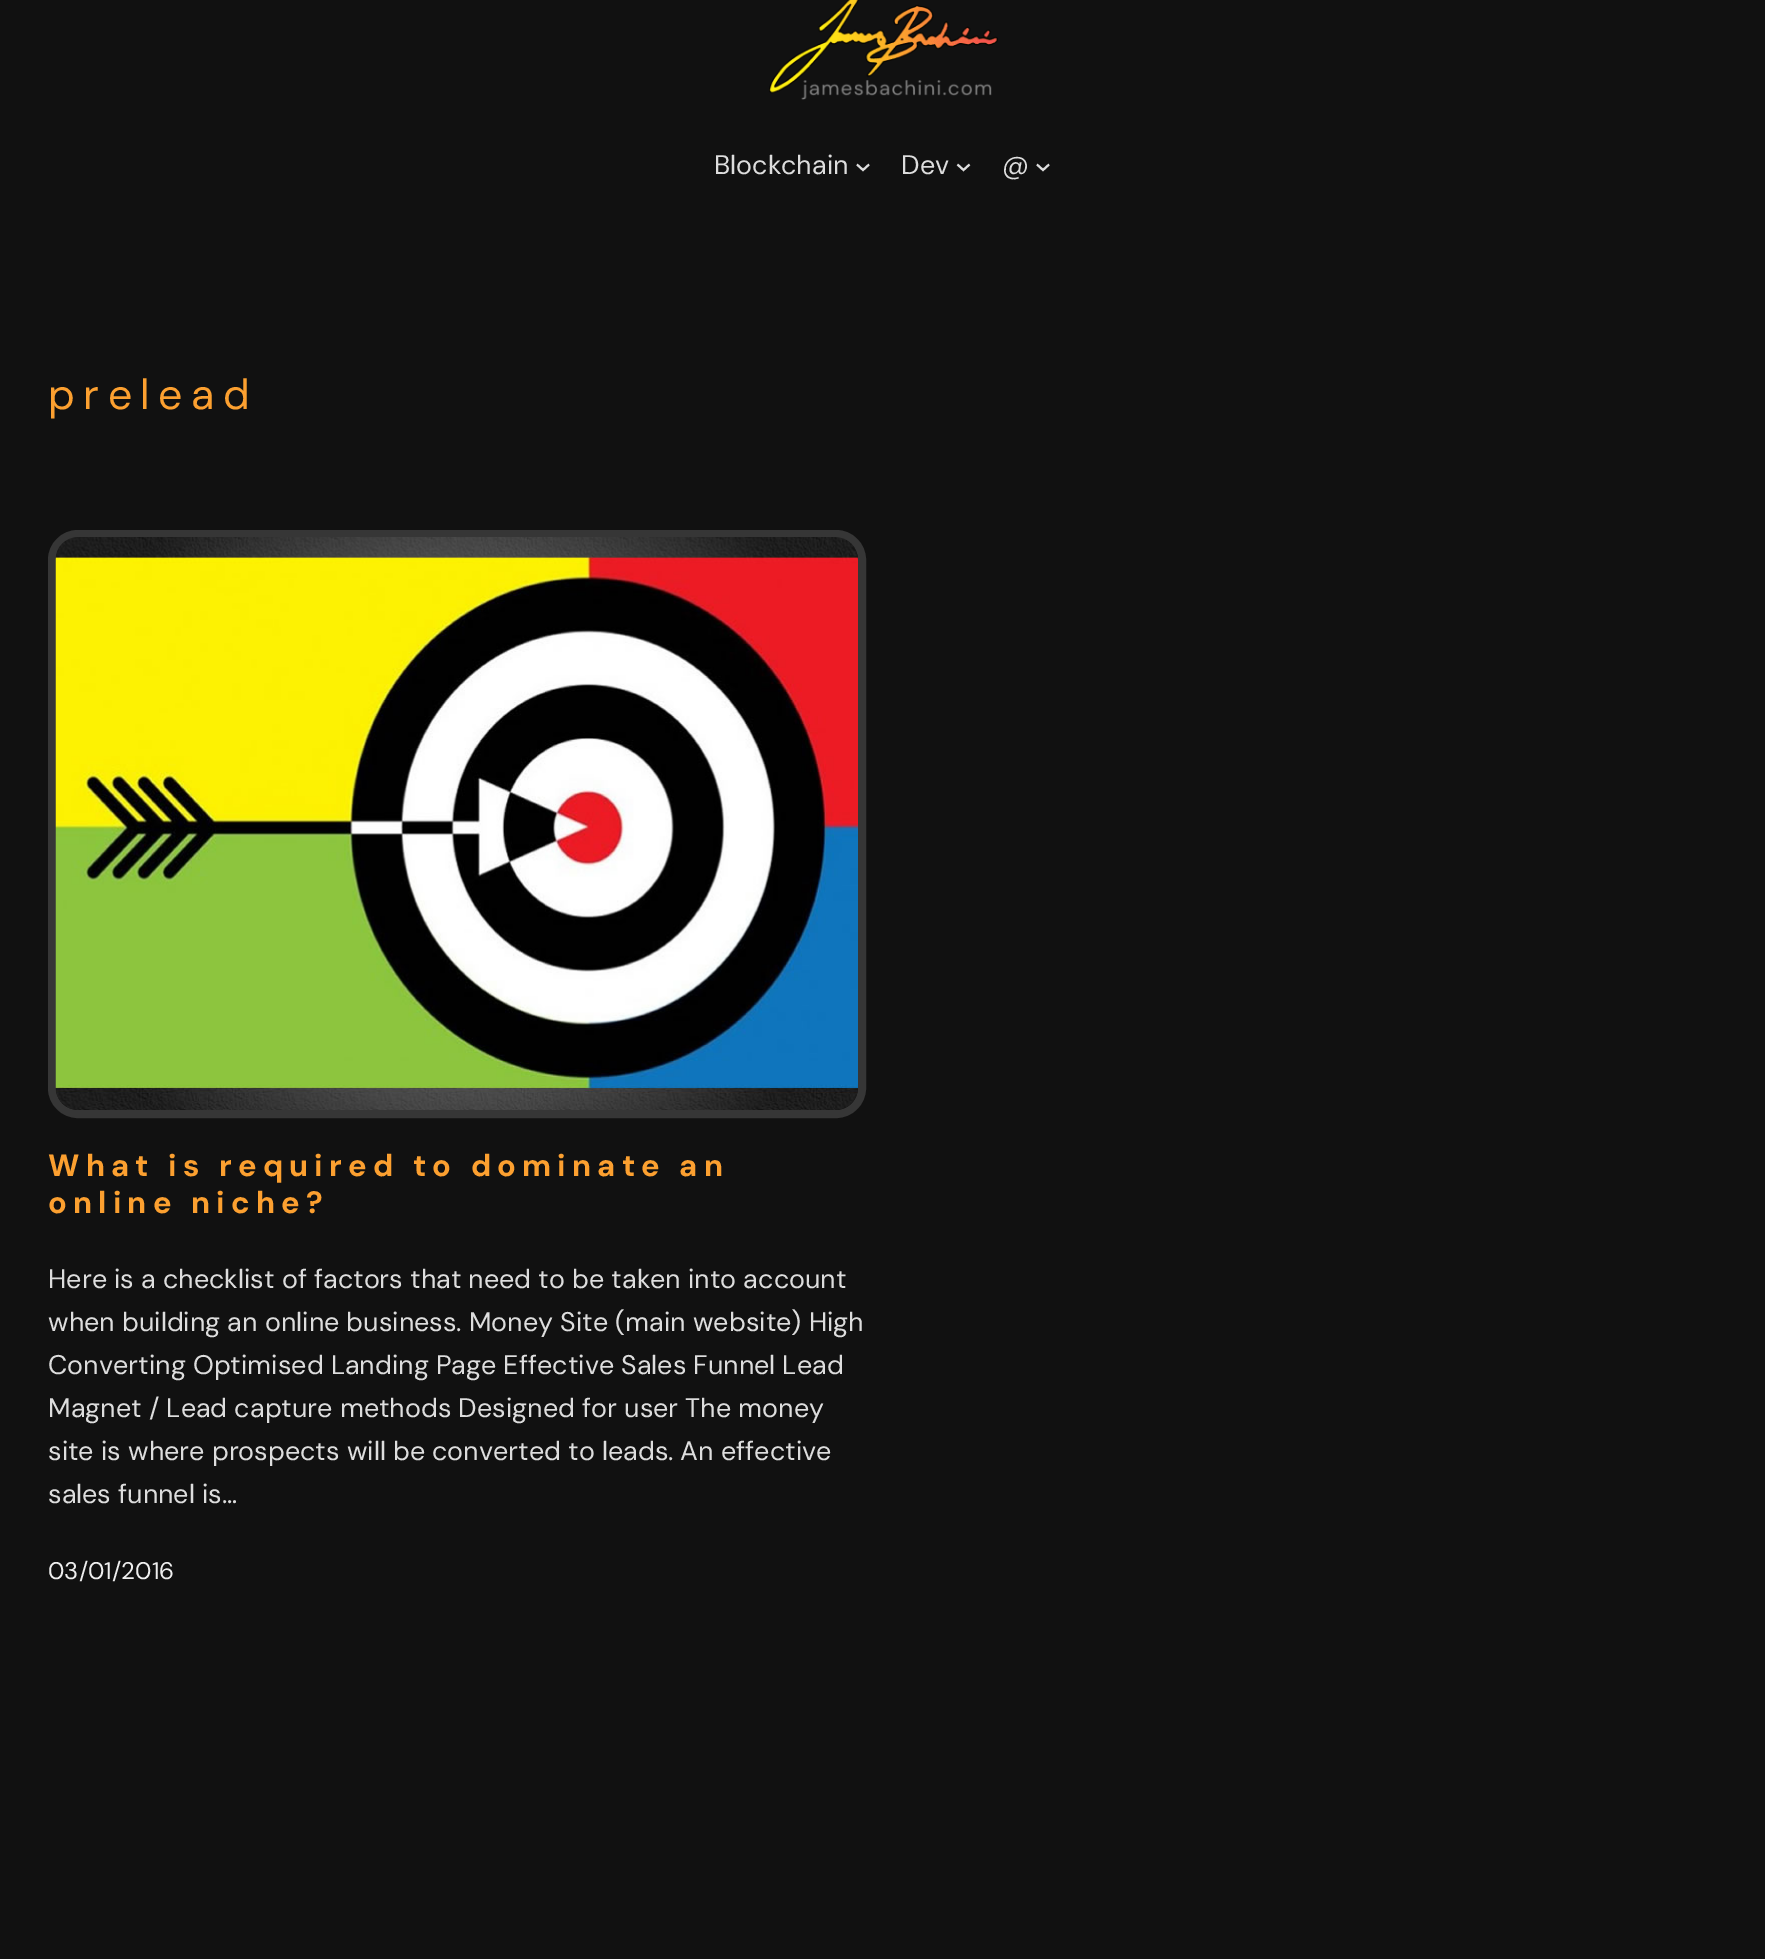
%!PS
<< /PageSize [1765 1959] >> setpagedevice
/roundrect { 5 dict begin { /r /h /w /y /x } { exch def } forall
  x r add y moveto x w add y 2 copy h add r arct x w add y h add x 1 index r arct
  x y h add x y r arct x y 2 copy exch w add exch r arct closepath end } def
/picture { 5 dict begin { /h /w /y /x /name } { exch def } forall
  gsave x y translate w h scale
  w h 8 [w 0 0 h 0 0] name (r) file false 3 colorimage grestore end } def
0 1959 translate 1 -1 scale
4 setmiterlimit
0.067 setgray
0 0 1765 1959 rectfill
(img1.rgb) 769 0 229 100 picture
/DMSans-Regular [26.9 0 0 -26.9 0 0] selectfont
0.867 setgray
714 174 moveto (Blockchain) show
2 setlinewidth
newpath 857 164.5 moveto 863 170 lineto 869 164.5 lineto stroke
901 174 moveto (Dev) show
newpath 957.5 164.5 moveto 963.5 170 lineto 969.5 164.5 lineto stroke
1002 174 moveto (@) show
newpath 1037 164.5 moveto 1043 170 lineto 1049 164.5 lineto stroke
/DMSans-Regular [42.75 0 0 -42.75 0 0] selectfont
0.988 0.627 0.188 setrgbcolor
48 409 moveto 8.5 0 (prelead) ashow
0.212 setgray
8 setlinewidth
52 534 810 580 26 roundrect stroke
(img2.rgb) 55 537 803 573 picture
/DMSans-Bold [30.9 0 0 -30.9 0 0] selectfont
0.988 0.627 0.188 setrgbcolor
48 1176 moveto 6.2 0 (What is required to dominate an) ashow
48 1213 moveto 6.2 0 (online niche?) ashow
/DMSans-Regular [26.9 0 0 -26.9 0 0] selectfont
0.867 setgray
48 1288 moveto (Here is a checklist of factors that need to be taken into account) show
48 1331 moveto (when building an online business. Money Site \(main website\) High) show
48 1374 moveto (Converting Optimised Landing Page Effective Sales Funnel Lead) show
48 1417 moveto (Magnet / Lead capture methods Designed for user The money) show
48 1460 moveto (site is where prospects will be converted to leads. An effective) show
48 1503 moveto (sales funnel is…) show
/DMSans-Regular [24 0 0 -24 0 0] selectfont
0.933 setgray
48 1579 moveto (03/01/2016) show
showpage
